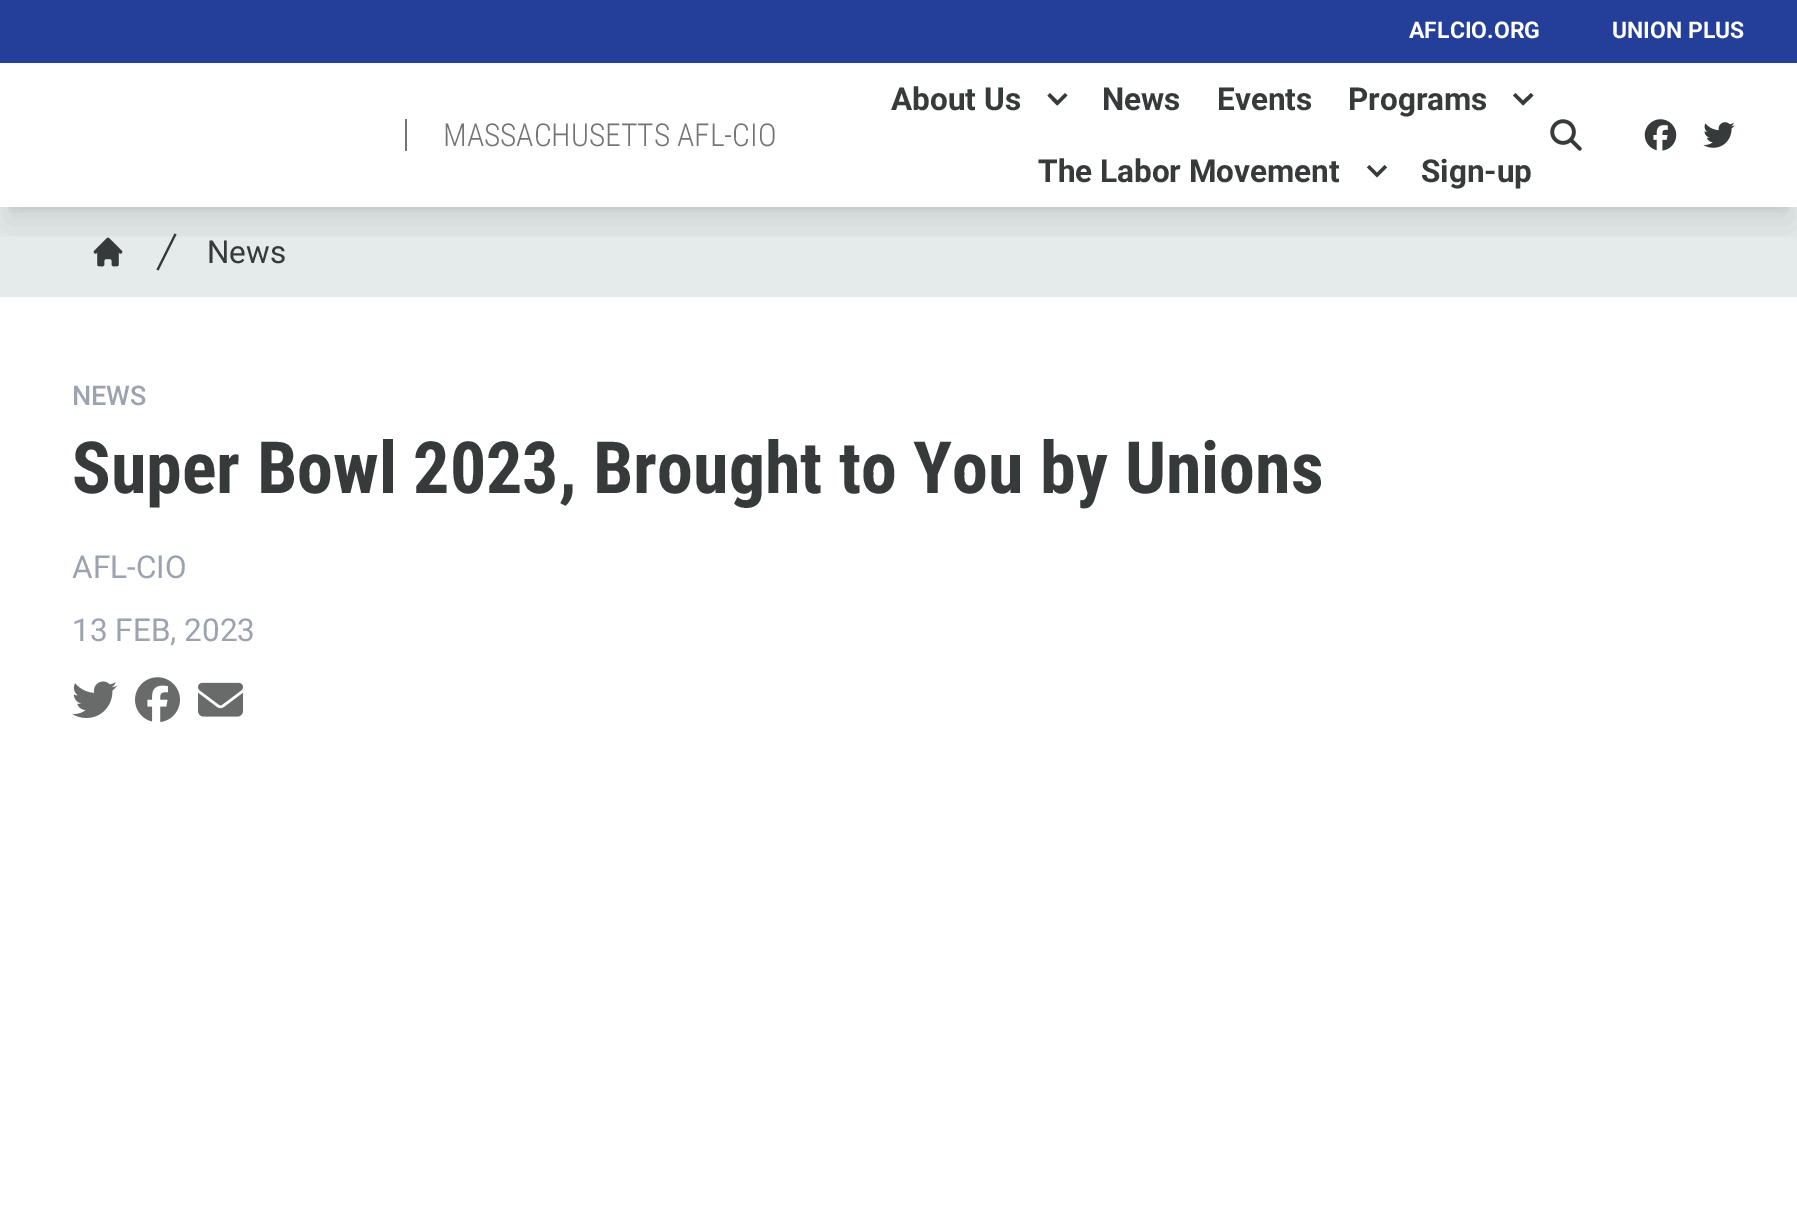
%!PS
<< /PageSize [1797 1227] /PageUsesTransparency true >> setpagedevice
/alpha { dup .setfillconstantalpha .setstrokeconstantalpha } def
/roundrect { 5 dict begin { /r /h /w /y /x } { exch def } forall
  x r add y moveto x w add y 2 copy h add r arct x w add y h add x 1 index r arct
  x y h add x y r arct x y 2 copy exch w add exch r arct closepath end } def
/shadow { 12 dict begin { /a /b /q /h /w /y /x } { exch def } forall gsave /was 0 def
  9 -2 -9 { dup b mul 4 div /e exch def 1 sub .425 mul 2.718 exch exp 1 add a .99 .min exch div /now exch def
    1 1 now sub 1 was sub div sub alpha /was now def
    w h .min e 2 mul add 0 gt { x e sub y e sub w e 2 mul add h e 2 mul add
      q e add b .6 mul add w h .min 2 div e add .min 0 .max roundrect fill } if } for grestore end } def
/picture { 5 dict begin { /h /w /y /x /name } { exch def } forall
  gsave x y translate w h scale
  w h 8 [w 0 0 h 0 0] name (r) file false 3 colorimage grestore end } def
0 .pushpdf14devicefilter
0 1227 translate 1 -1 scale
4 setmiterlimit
1 setgray
0 0 1797 1227 rectfill
0.137 0.247 0.604 setrgbcolor
0 0 1797 63 rectfill
/Roboto-Bold [23 0 0 -23 0 0] selectfont
1 setgray
1409 38 moveto (AFLCIO.ORG) show
1612 38 moveto (UNION PLUS) show
0.898 0.918 0.922 setrgbcolor
0 207 1797 90 rectfill
gsave
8 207 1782 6 rectclip
0 setgray
9 81 1780 126 0 7 0.1 shadow
grestore
(img5.rgb) 93 237 30 30 picture
0.216 0.227 0.227 setrgbcolor
newpath 156.5 269.5 moveto 174.5 233.5 lineto 176.5 234.5 lineto 158.5 270.5 lineto closepath fill
gsave
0 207 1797 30 rectclip
0 setgray
7 92 1784 131 0 17 0.1 shadow
grestore
0.451 0.459 0.459 setrgbcolor
405 119 2 32 rectfill
/RobotoCondensed-Light [31.5 0 0 -31.5 0 0] selectfont
443 146 moveto (MASSACHUSETTS AFL-CIO) show
/Roboto-Bold [31.5 0 0 -31.5 0 0] selectfont
0.216 0.227 0.227 setrgbcolor
891 110 moveto (About Us) show
newpath 1056 104.5 moveto 1057.5 105.5 lineto 1067.5 95.5 lineto 1065 93 lineto 1057.5 100.5 lineto 1050 93 lineto 1047.5 95.5 lineto closepath fill
1102 110 moveto (News) show
1217 110 moveto (Events) show
1348 110 moveto (Programs) show
newpath 1522 104.5 moveto 1523 105.5 lineto 1533.5 95.5 lineto 1531 93 lineto 1523 100.5 lineto 1515.5 93 lineto 1513 95.5 lineto closepath fill
1038 182 moveto (The Labor Movement) show
(img1.rgb) 1366 165 22 13 picture
1421 182 moveto (Sign-up) show
(img2.rgb) 1550 119 32 32 picture
(img3.rgb) 1644 119 33 32 picture
(img4.rgb) 1703 122 32 26 picture
/Roboto-Regular [31.5 0 0 -31.5 0 0] selectfont
207 263 moveto (News) show
/Roboto-Medium [27 0 0 -27 0 0] selectfont
0.612 0.639 0.686 setrgbcolor
72 405 moveto (NEWS) show
/RobotoCondensed-Bold [72 0 0 -72 0 0] selectfont
0.216 0.227 0.227 setrgbcolor
72 493 moveto (Super Bowl 2023, Brought to You by Unions) show
/Roboto-Regular [31.5 0 0 -31.5 0 0] selectfont
0.612 0.639 0.686 setrgbcolor
72 578 moveto (AFL-CIO) show
72 641 moveto (13 FEB, 2023) show
(img6.rgb) 72 681 45 37 picture
(img7.rgb) 135 677 45 45 picture
(img8.rgb) 198 682 45 35 picture
.poppdf14devicefilter showpage
